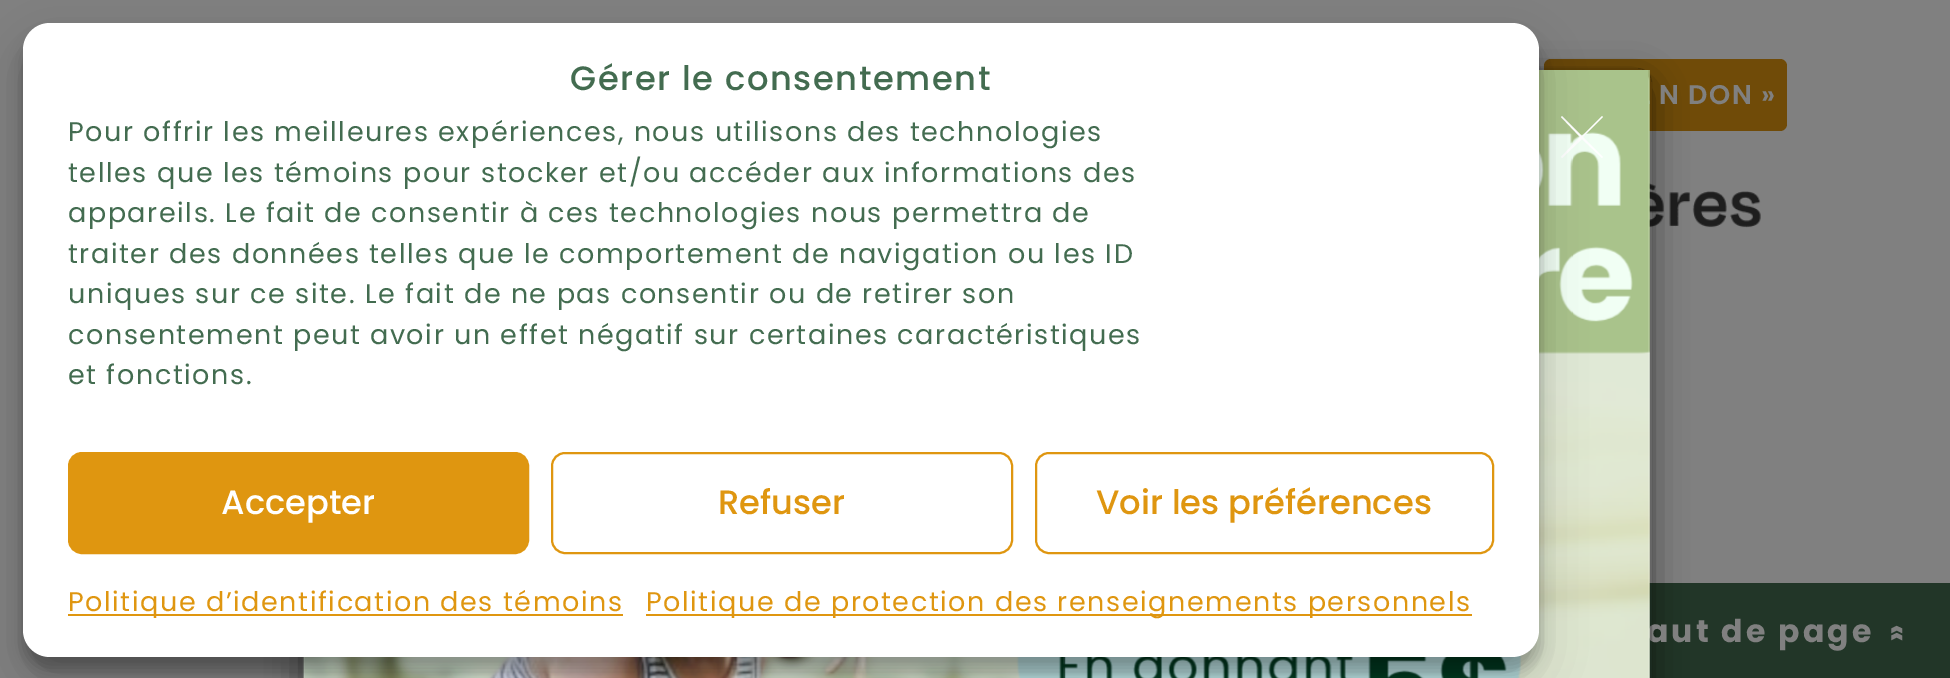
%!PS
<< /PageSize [1950 678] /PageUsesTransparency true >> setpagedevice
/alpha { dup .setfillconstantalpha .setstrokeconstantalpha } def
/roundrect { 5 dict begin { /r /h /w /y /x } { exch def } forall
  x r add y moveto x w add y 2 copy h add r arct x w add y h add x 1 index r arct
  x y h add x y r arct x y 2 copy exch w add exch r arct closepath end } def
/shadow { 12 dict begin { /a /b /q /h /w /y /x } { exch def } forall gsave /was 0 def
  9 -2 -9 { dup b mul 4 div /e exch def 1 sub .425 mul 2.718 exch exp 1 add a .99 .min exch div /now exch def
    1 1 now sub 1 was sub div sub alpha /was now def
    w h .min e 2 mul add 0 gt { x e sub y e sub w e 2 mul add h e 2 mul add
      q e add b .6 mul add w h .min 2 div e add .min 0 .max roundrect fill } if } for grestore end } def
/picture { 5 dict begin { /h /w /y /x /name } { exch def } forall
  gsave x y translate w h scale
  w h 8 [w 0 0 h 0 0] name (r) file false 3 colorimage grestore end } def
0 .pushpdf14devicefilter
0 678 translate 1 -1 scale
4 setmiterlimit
0.502 setgray
0 0 1950 678 rectfill
0.439 0.294 0.031 setrgbcolor
1544 59 243 72 7 roundrect fill
(img2.rgb) 1648 183 113 45 picture
0.133 0.212 0.157 setrgbcolor
1648 583 302 95 rectfill
gsave
newpath 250 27 moveto 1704 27 lineto 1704 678 lineto 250 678 lineto closepath 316 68 moveto 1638 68 lineto 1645.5 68 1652 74.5 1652 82 curveto 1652 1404 lineto 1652 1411.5 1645.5 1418 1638 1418 curveto 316 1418 lineto 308.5 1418 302 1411.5 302 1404 curveto 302 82 lineto 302 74.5 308.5 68 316 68 curveto closepath eoclip newpath
0 setgray
302 79 1350 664 14 17 0.5 shadow
grestore
/Poppins-Bold [31.5 0 0 -31.5 0 0] selectfont
0.502 setgray
1647 642 moveto 3.1 0 (aut de page) ashow
0.2 alpha
0 setgray
2 setlinewidth
303 69 1348 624 13 roundrect stroke
1 alpha
(img1.rgb) 303 70 1347 608 picture
1 setgray
newpath 1603 117 moveto 1602 116 lineto 1582 136 lineto 1562 116 lineto 1561 117 lineto 1580 137 lineto 1561 157 lineto 1562 158 lineto 1582 139 lineto 1602 158 lineto 1603 157 lineto 1583 137 lineto closepath fill
0 setgray
23 36 1516 635 27 7 0.23 shadow
23 45 1516 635 27 22.5 0.19 shadow
1 setgray
23 23 1516 634 27 roundrect fill
/Poppins-Medium [33.75 0 0 -33.75 0 0] selectfont
0.263 0.424 0.314 setrgbcolor
570 90 moveto 1.57 0 (Gérer le consentement) ashow
/Poppins-Regular [27 0 0 -27 0 0] selectfont
68 141 moveto 1.57 0 (Pour offrir les meilleures expériences, nous utilisons des technologies) ashow
68 182 moveto 1.57 0 (telles que les témoins pour stocker et/ou accéder aux informations des) ashow
68 222 moveto 1.57 0 (appareils. Le fait de consentir à ces technologies nous permettra de) ashow
68 263 moveto 1.57 0 (traiter des données telles que le comportement de navigation ou les ID) ashow
68 303 moveto 1.57 0 (uniques sur ce site. Le fait de ne pas consentir ou de retirer son) ashow
68 344 moveto 1.57 0 (consentement peut avoir un effet négatif sur certaines caractéristiques) ashow
68 384 moveto 1.57 0 (et fonctions.) ashow
0.875 0.588 0.063 setrgbcolor
69 453 459 100 13 roundrect gsave fill grestore
stroke
/Poppins-Medium [33.75 0 0 -33.75 0 0] selectfont
1 setgray
221 514 moveto (Accepter) show
0.875 0.588 0.063 setrgbcolor
552 453 460 100 13 roundrect stroke
718 514 moveto (Refuser) show
1036 453 457 100 13 roundrect stroke
1096 514 moveto (Voir les préférences) show
68 614 555 2 rectfill
/Poppins-Regular [27 0 0 -27 0 0] selectfont
68 611 moveto 1.57 0 (Politique d’identification des témoins) ashow
646 614 826 2 rectfill
646 611 moveto 1.57 0 (Politique de protection des renseignements personnels) ashow
/Poppins-SemiBold [27 0 0 -27 0 0] selectfont
0.502 setgray
1659 104 moveto 1.57 0 (N DON ») ashow
/Poppins-Bold [31.5 0 0 -31.5 0 0] selectfont
gsave 1906 642 translate -90 rotate 0 0 moveto 3.1 0 (») ashow grestore
.poppdf14devicefilter showpage
